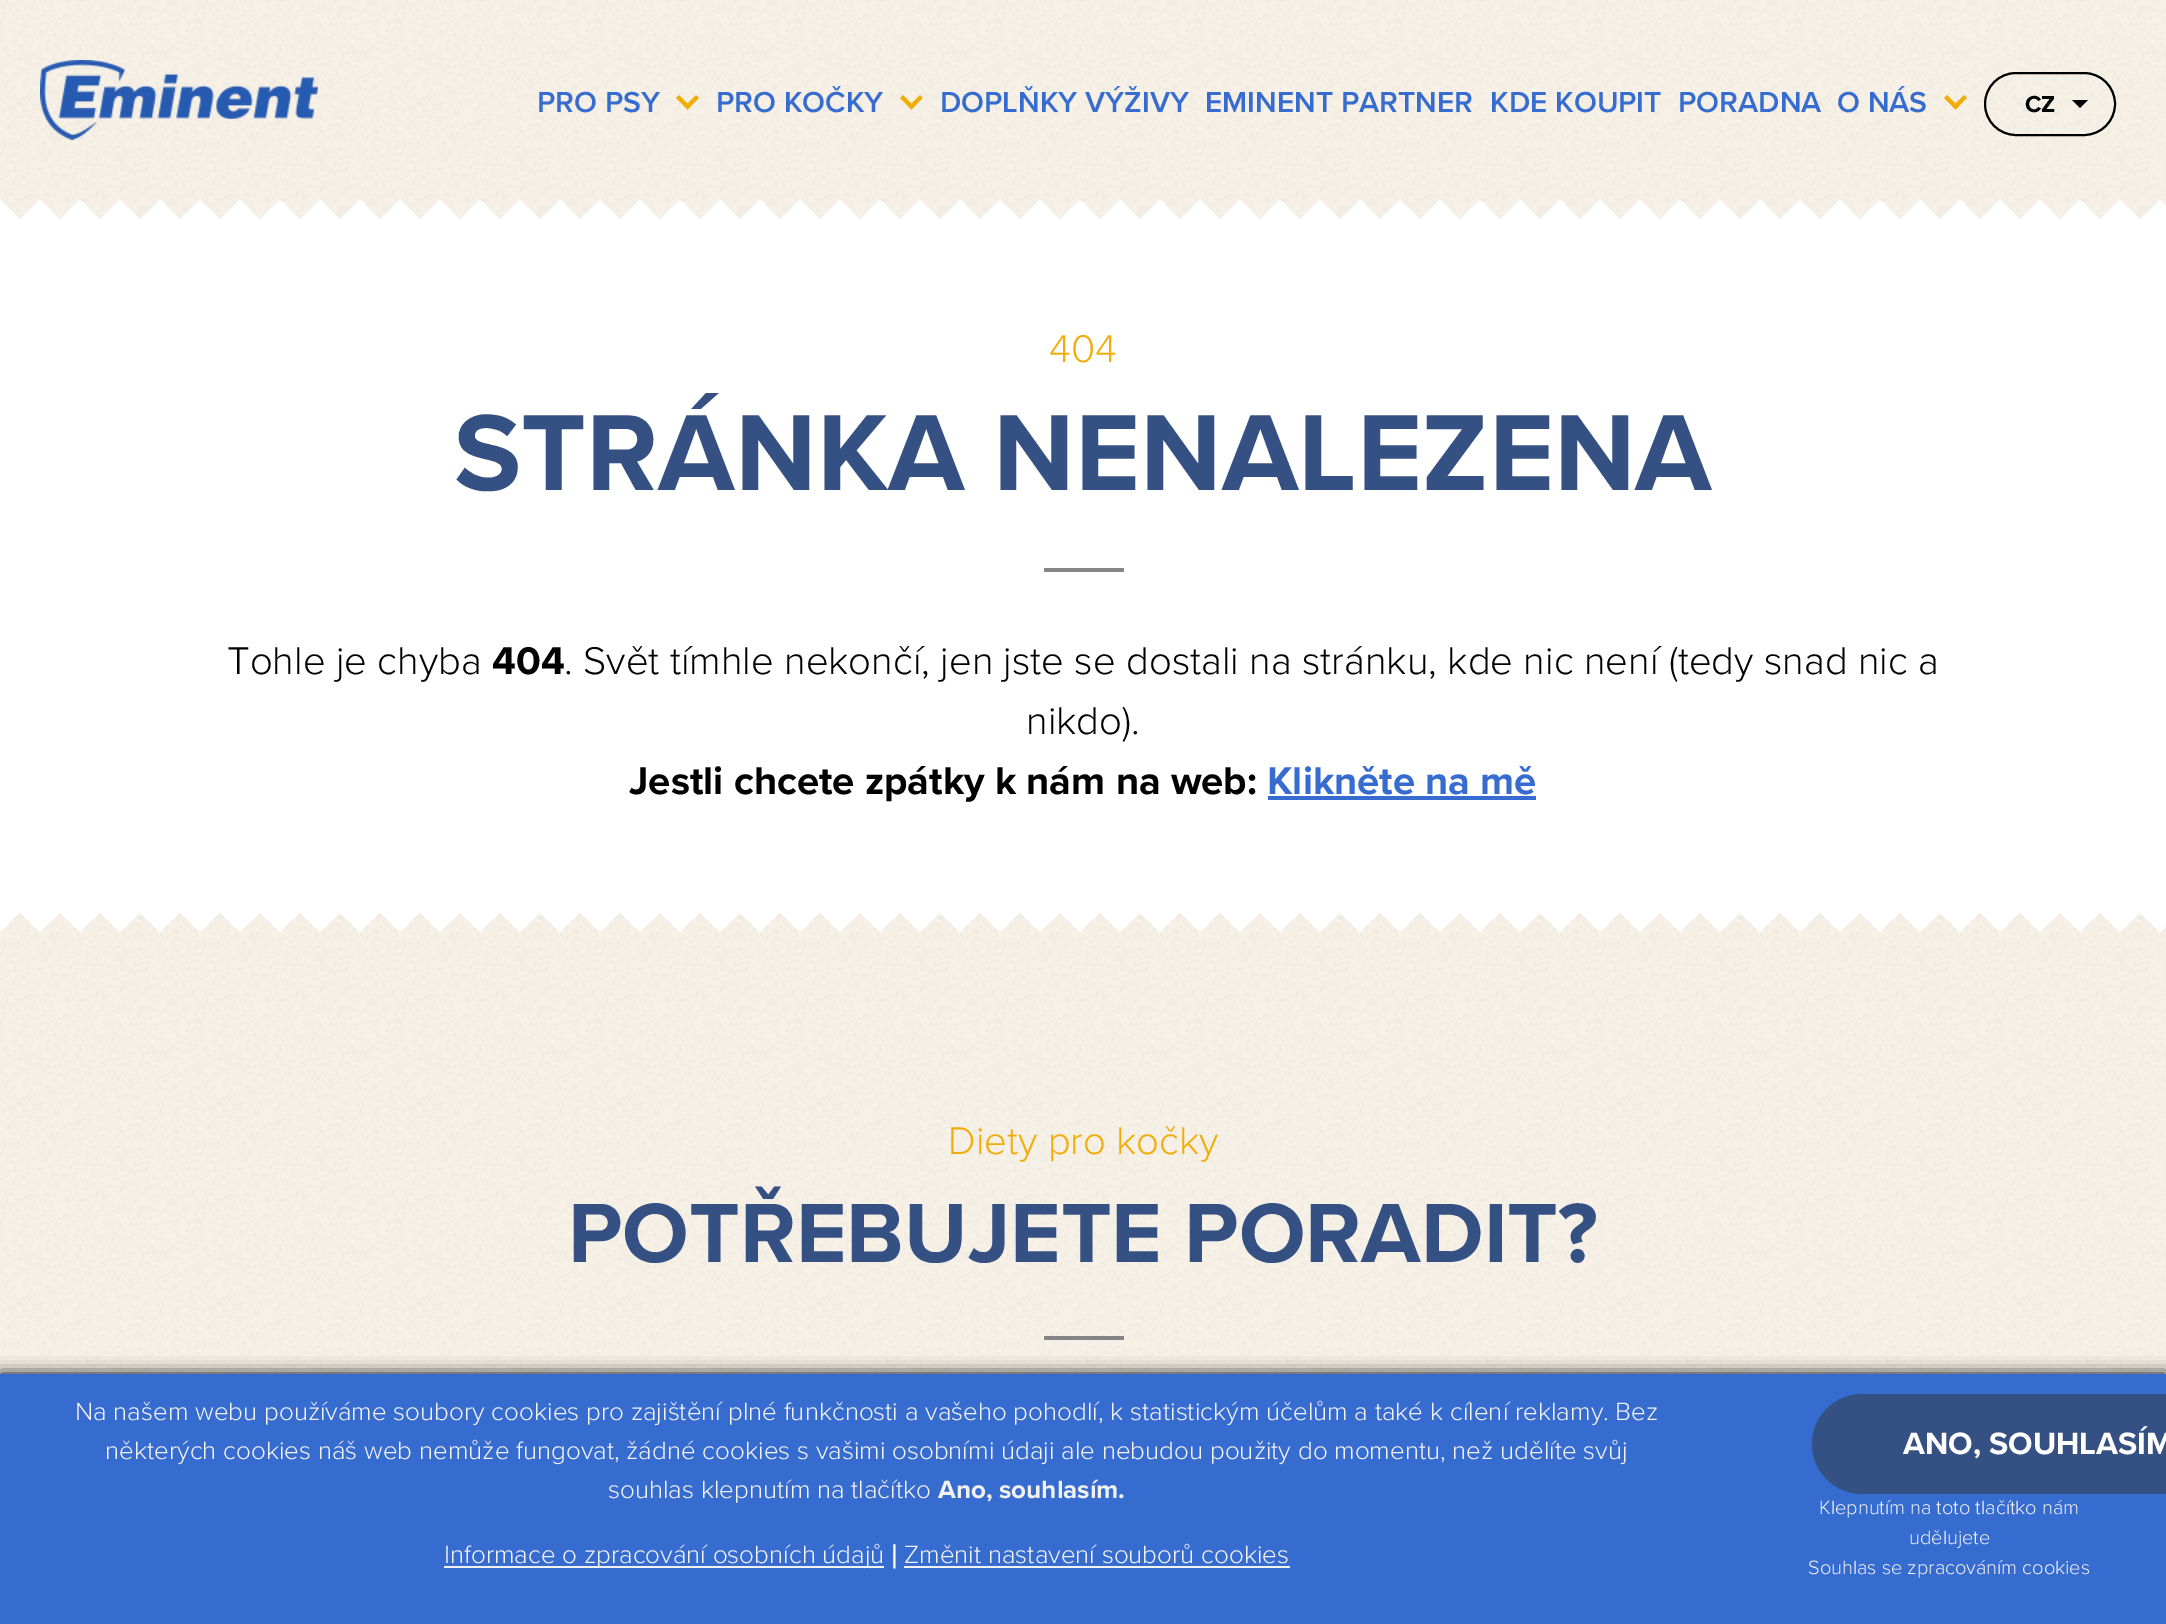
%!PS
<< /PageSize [2166 1624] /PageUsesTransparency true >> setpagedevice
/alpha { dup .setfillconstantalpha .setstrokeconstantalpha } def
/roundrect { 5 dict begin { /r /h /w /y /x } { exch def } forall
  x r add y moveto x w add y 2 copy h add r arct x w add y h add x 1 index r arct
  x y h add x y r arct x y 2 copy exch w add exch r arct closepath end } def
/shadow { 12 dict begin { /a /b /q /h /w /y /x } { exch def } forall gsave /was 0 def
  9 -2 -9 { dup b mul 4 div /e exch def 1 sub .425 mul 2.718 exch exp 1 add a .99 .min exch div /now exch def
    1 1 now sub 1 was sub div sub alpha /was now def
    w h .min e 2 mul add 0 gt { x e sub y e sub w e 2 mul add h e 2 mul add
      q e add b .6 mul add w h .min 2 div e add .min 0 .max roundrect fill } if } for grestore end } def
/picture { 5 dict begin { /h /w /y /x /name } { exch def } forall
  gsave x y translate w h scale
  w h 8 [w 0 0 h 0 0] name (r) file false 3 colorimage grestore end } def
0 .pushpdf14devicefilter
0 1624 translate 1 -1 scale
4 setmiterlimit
1 setgray
0 0 2166 1624 rectfill
(img1.rgb) 0 0 2166 1374 picture
(img2.rgb) 40 60 278 80 picture
/ProximaNova-SemiBold [30 0 0 -30 0 0] selectfont
0.212 0.424 0.812 setrgbcolor
537 112 moveto (PRO PSY) show
0.945 0.675 0.02 setrgbcolor
newpath 696 95 moveto 699 98 lineto 687.5 109.5 lineto 684.5 106.5 lineto closepath fill
newpath 679 95 moveto 690.5 106.5 lineto 687.5 109.5 lineto 676 98 lineto closepath fill
0.212 0.424 0.812 setrgbcolor
716 112 moveto (PRO KOČKY) show
0.945 0.675 0.02 setrgbcolor
newpath 920 95 moveto 922.5 98 lineto 911.5 109.5 lineto 908.5 106.5 lineto closepath fill
newpath 903 95 moveto 914 106.5 lineto 911.5 109.5 lineto 900 98 lineto closepath fill
0.212 0.424 0.812 setrgbcolor
940 112 moveto (DOPLŇKY VÝŽIVY) show
1205 112 moveto (EMINENT PARTNER) show
1490 112 moveto (KDE KOUPIT) show
1678 112 moveto (PORADNA) show
1837 112 moveto (O NÁS) show
0.945 0.675 0.02 setrgbcolor
newpath 1964 95 moveto 1967 98 lineto 1955.5 109.5 lineto 1952.5 106.5 lineto closepath fill
newpath 1947 95 moveto 1958.5 106.5 lineto 1955.5 109.5 lineto 1944 98 lineto closepath fill
0 setgray
2 setlinewidth
1985 73 130 62 31 roundrect stroke
/ProximaNova-Bold [24 0 0 -24 0 0] selectfont
2025 112 moveto (CZ) show
newpath 2072 100 moveto 2088 100 lineto 2080 108 lineto closepath fill
(img3.rgb) 20 200 2140 20 picture
(img4.rgb) 0 200 2166 20 picture
1 setgray
0 220 2166 692 rectfill
/ProximaNova-Light [40 0 0 -40 0 0] selectfont
0.945 0.675 0.02 setrgbcolor
1049 362 moveto (404) show
/ProximaNova-Bold [112 0 0 -112 0 0] selectfont
0.208 0.314 0.51 setrgbcolor
454 490 moveto (STRÁNKA NENALEZENA) show
0.522 setgray
1044 568 80 4 rectfill
/ProximaNova-Light [40 0 0 -40 0 0] selectfont
0 setgray
227 674 moveto (Tohle je chyba) show
/ProximaNova-Bold [40 0 0 -40 0 0] selectfont
492 674 moveto (404) show
/ProximaNova-Light [40 0 0 -40 0 0] selectfont
564 674 moveto (. Svět tímhle nekončí, jen jste se dostali na stránku, kde nic není \(tedy snad nic a) show
1026 734 moveto (nikdo\).) show
/ProximaNova-Bold [40 0 0 -40 0 0] selectfont
629 794 moveto (Jestli chcete zpátky k nám na web:) show
0.212 0.424 0.812 setrgbcolor
1267 794 moveto (Klikněte na mě) show
1268 796 268 4 rectfill
(img5.rgb) 0 912 2166 20 picture
(img6.rgb) 20 912 2140 20 picture
/ProximaNova-Light [40 0 0 -40 0 0] selectfont
0.945 0.675 0.02 setrgbcolor
948 1154 moveto (Diety pro kočky) show
/ProximaNova-Bold [87.1 0 0 -87.1 0 0] selectfont
0.208 0.314 0.51 setrgbcolor
568 1262 moveto (POTŘEBUJETE PORADIT?) show
0.522 setgray
1044 1336 80 4 rectfill
0 setgray
0 1374 2166 250 0 8 1 shadow
0.212 0.424 0.812 setrgbcolor
0 1374 2166 250 rectfill
/ProximaNova-Light [26 0 0 -26 0 0] selectfont
0.949 setgray
75 1420 moveto (Na našem webu používáme soubory cookies pro zajištění plné funkčnosti a vašeho pohodlí, k statistickým účelům a také k cílení reklamy. Bez) show
105 1459 moveto (některých cookies náš web nemůže fungovat, žádné cookies s vašimi osobními údaji ale nebudou použity do momentu, než udělíte svůj) show
608 1498 moveto (souhlas klepnutím na tlačítko) show
/ProximaNova-Bold [26 0 0 -26 0 0] selectfont
938 1498 moveto (Ano, souhlasím.) show
444 1566 440 2 rectfill
/ProximaNova-Light [26 0 0 -26 0 0] selectfont
444 1563 moveto (Informace o zpracování osobních údajů) show
/LiberationSans-Regular [26 0 0 -26 0 0] selectfont
1 setgray
891 1563 moveto (|) show
/ProximaNova-Light [26 0 0 -26 0 0] selectfont
0.949 setgray
904 1563 moveto (Změnit nastavení souborů cookies) show
904 1566 386 2 rectfill
0.208 0.314 0.51 setrgbcolor
1812 1394 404 100 50 roundrect fill
/ProximaNova-Bold [32 0 0 -32 0 0] selectfont
1 setgray
1903 1454 moveto (ANO, SOUHLASÍM) show
/ProximaNova-Light [20 0 0 -20 0 0] selectfont
0.949 setgray
1819 1514 moveto (Klepnutím na toto tlačítko nám) show
1909 1544 moveto (udělujete) show
1808 1574 moveto (Souhlas se zpracováním cookies) show
.poppdf14devicefilter showpage
